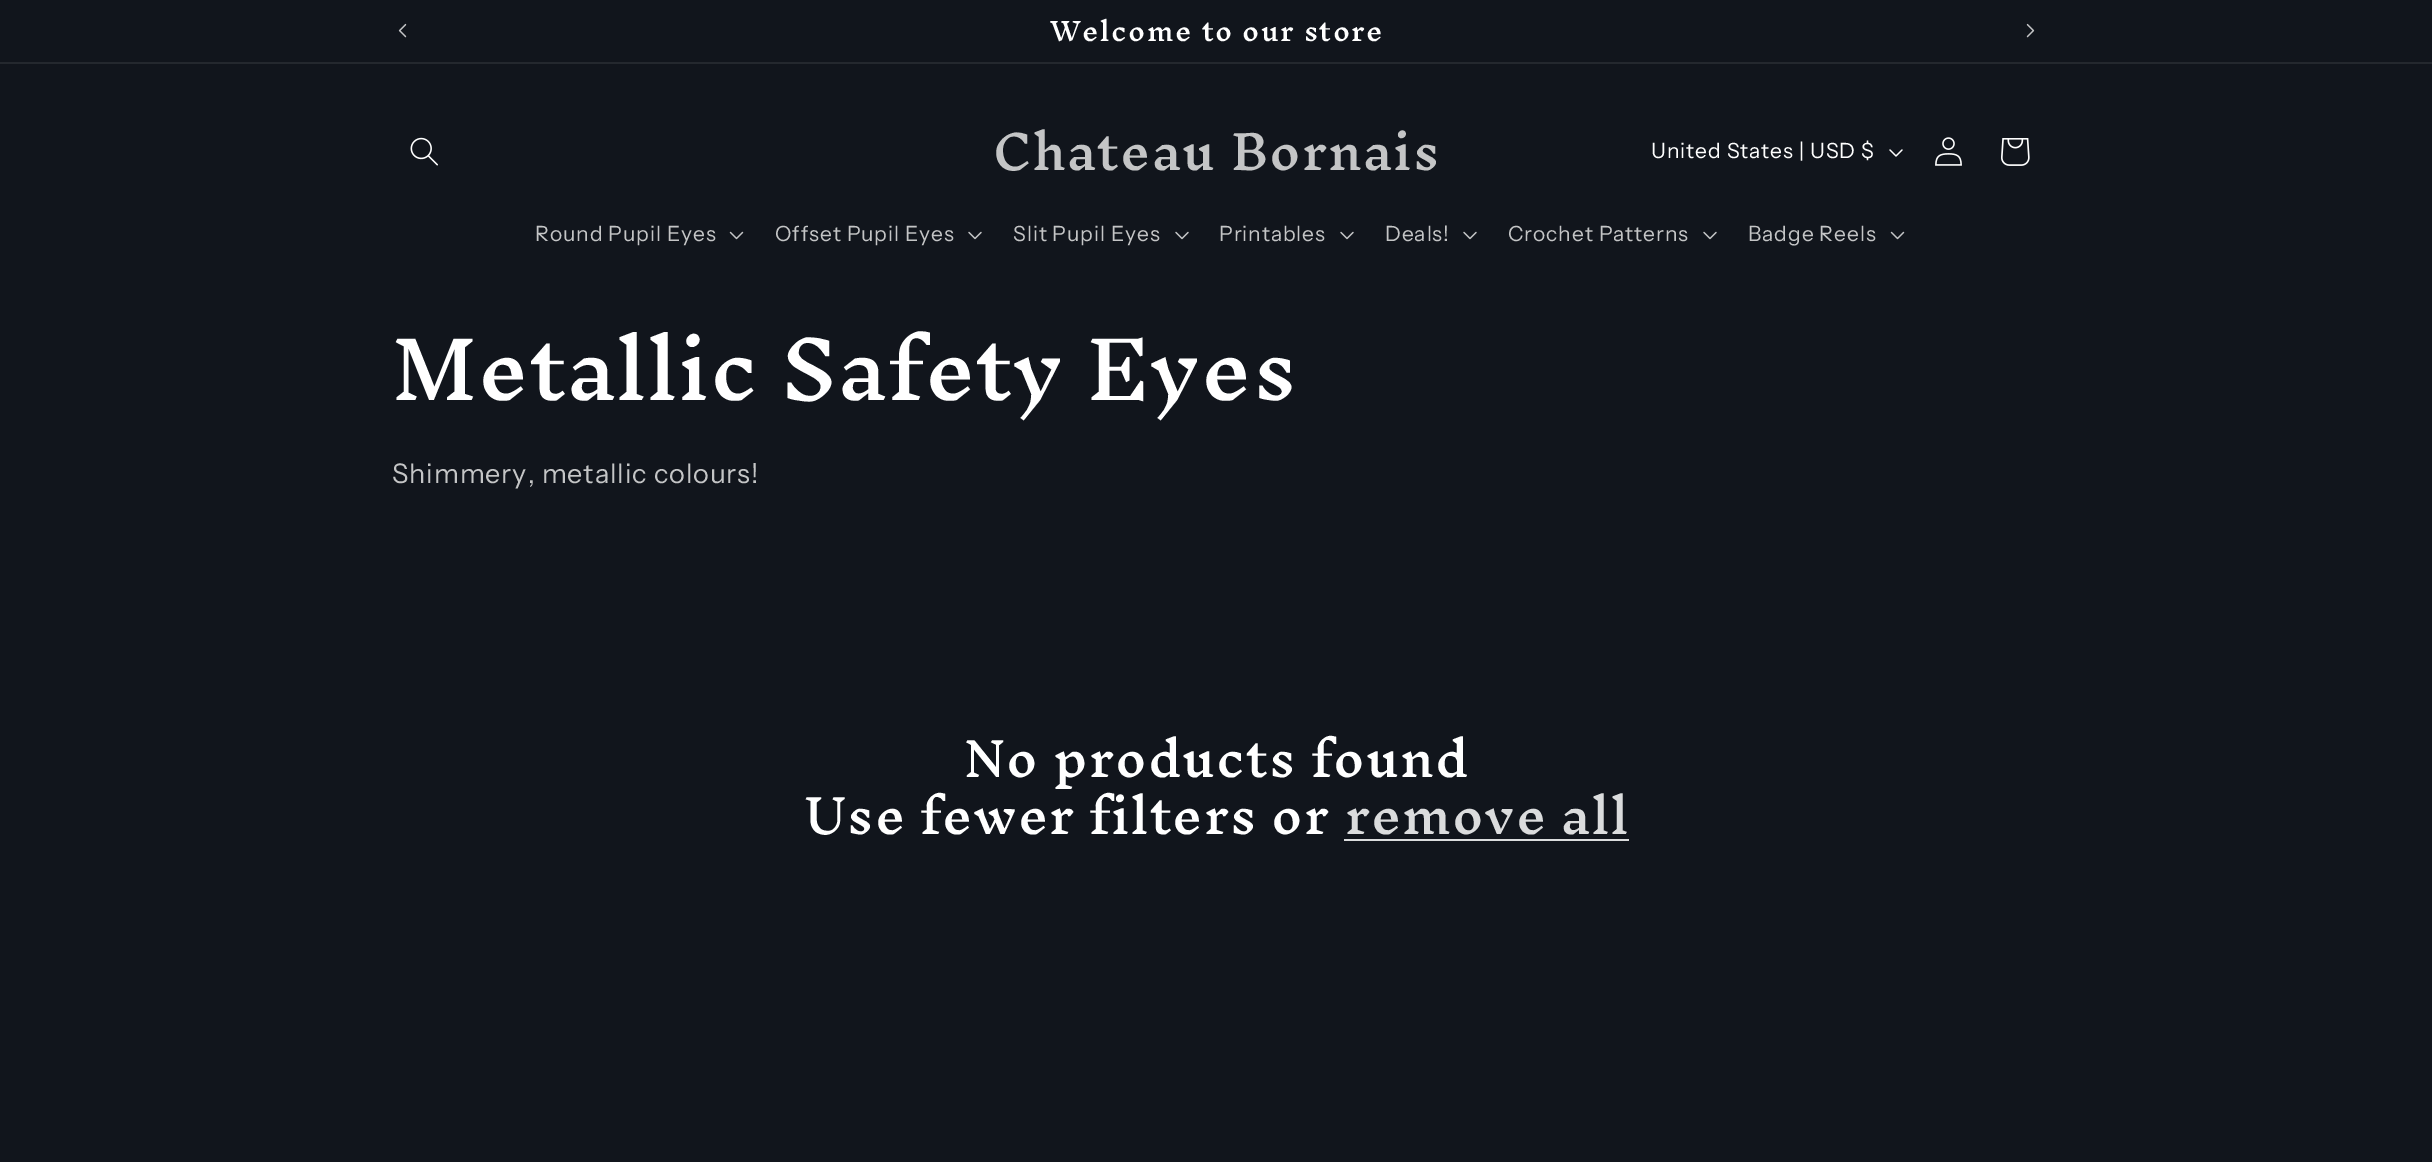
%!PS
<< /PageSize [2432 1162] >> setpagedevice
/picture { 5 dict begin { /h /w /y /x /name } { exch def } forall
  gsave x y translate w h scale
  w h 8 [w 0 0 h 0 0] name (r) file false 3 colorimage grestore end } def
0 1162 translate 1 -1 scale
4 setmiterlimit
0.067 0.082 0.11 setrgbcolor
0 0 2432 1162 rectfill
0.141 0.157 0.18 setrgbcolor
0 62 2432 2 rectfill
(img1.rgb) 398 23 9 15 picture
/InknutAntiqua-Medium [25.4 0 0 -25.4 0 0] selectfont
1 setgray
1050 41 moveto 1.5 0 (Welcome to our store) ashow
(img2.rgb) 2026 23 9 15 picture
(img3.rgb) 410 137 28 29 picture
/InknutAntiqua-Medium [46.75 0 0 -46.75 0 0] selectfont
0.769 0.773 0.776 setrgbcolor
993 170 moveto 1.2 0 (Chateau Bornais) ashow
/InstrumentSans-Regular [21 0 0 -21 0 0] selectfont
1 setgray
1651 158 moveto 0.9 0 (United States | USD $) ashow
(img4.rgb) 1889 149 14 8 picture
(img5.rgb) 1935 137 27 29 picture
(img6.rgb) 2001 138 29 28 picture
0.769 0.773 0.776 setrgbcolor
535 241 moveto 0.9 0 (Round Pupil Eyes) ashow
(img7.rgb) 729 231 15 9 picture
775 241 moveto 0.9 0 (Offset Pupil Eyes) ashow
(img8.rgb) 968 231 14 9 picture
1013 241 moveto 0.9 0 (Slit Pupil Eyes) ashow
(img8.rgb) 1175 231 14 9 picture
1219 241 moveto 0.9 0 (Printables) ashow
(img8.rgb) 1340 231 14 9 picture
1385 241 moveto 0.9 0 (Deals!) ashow
(img8.rgb) 1463 231 14 9 picture
1508 241 moveto 0.9 0 (Crochet Patterns) ashow
(img8.rgb) 1703 231 14 9 picture
1748 241 moveto 0.9 0 (Badge Reels) ashow
(img7.rgb) 1890 231 15 9 picture
/InknutAntiqua-Medium [78 0 0 -78 0 0] selectfont
1 setgray
392 400 moveto 1.2 0 (Metallic Safety Eyes) ashow
/InstrumentSans-Regular [27 0 0 -27 0 0] selectfont
0.769 0.773 0.776 setrgbcolor
392 483 moveto 0.9 0 (Shimmery, metallic colours!) ashow
/InknutAntiqua-Medium [46.75 0 0 -46.75 0 0] selectfont
1 setgray
964 777 moveto 1.2 0 (No products found) ashow
804 834 moveto 1.2 0 (Use fewer filters or) ashow
0.859 0.863 0.867 setrgbcolor
1345 834 moveto 1.2 0 (remove all) ashow
1344 839 285 2 rectfill
showpage
